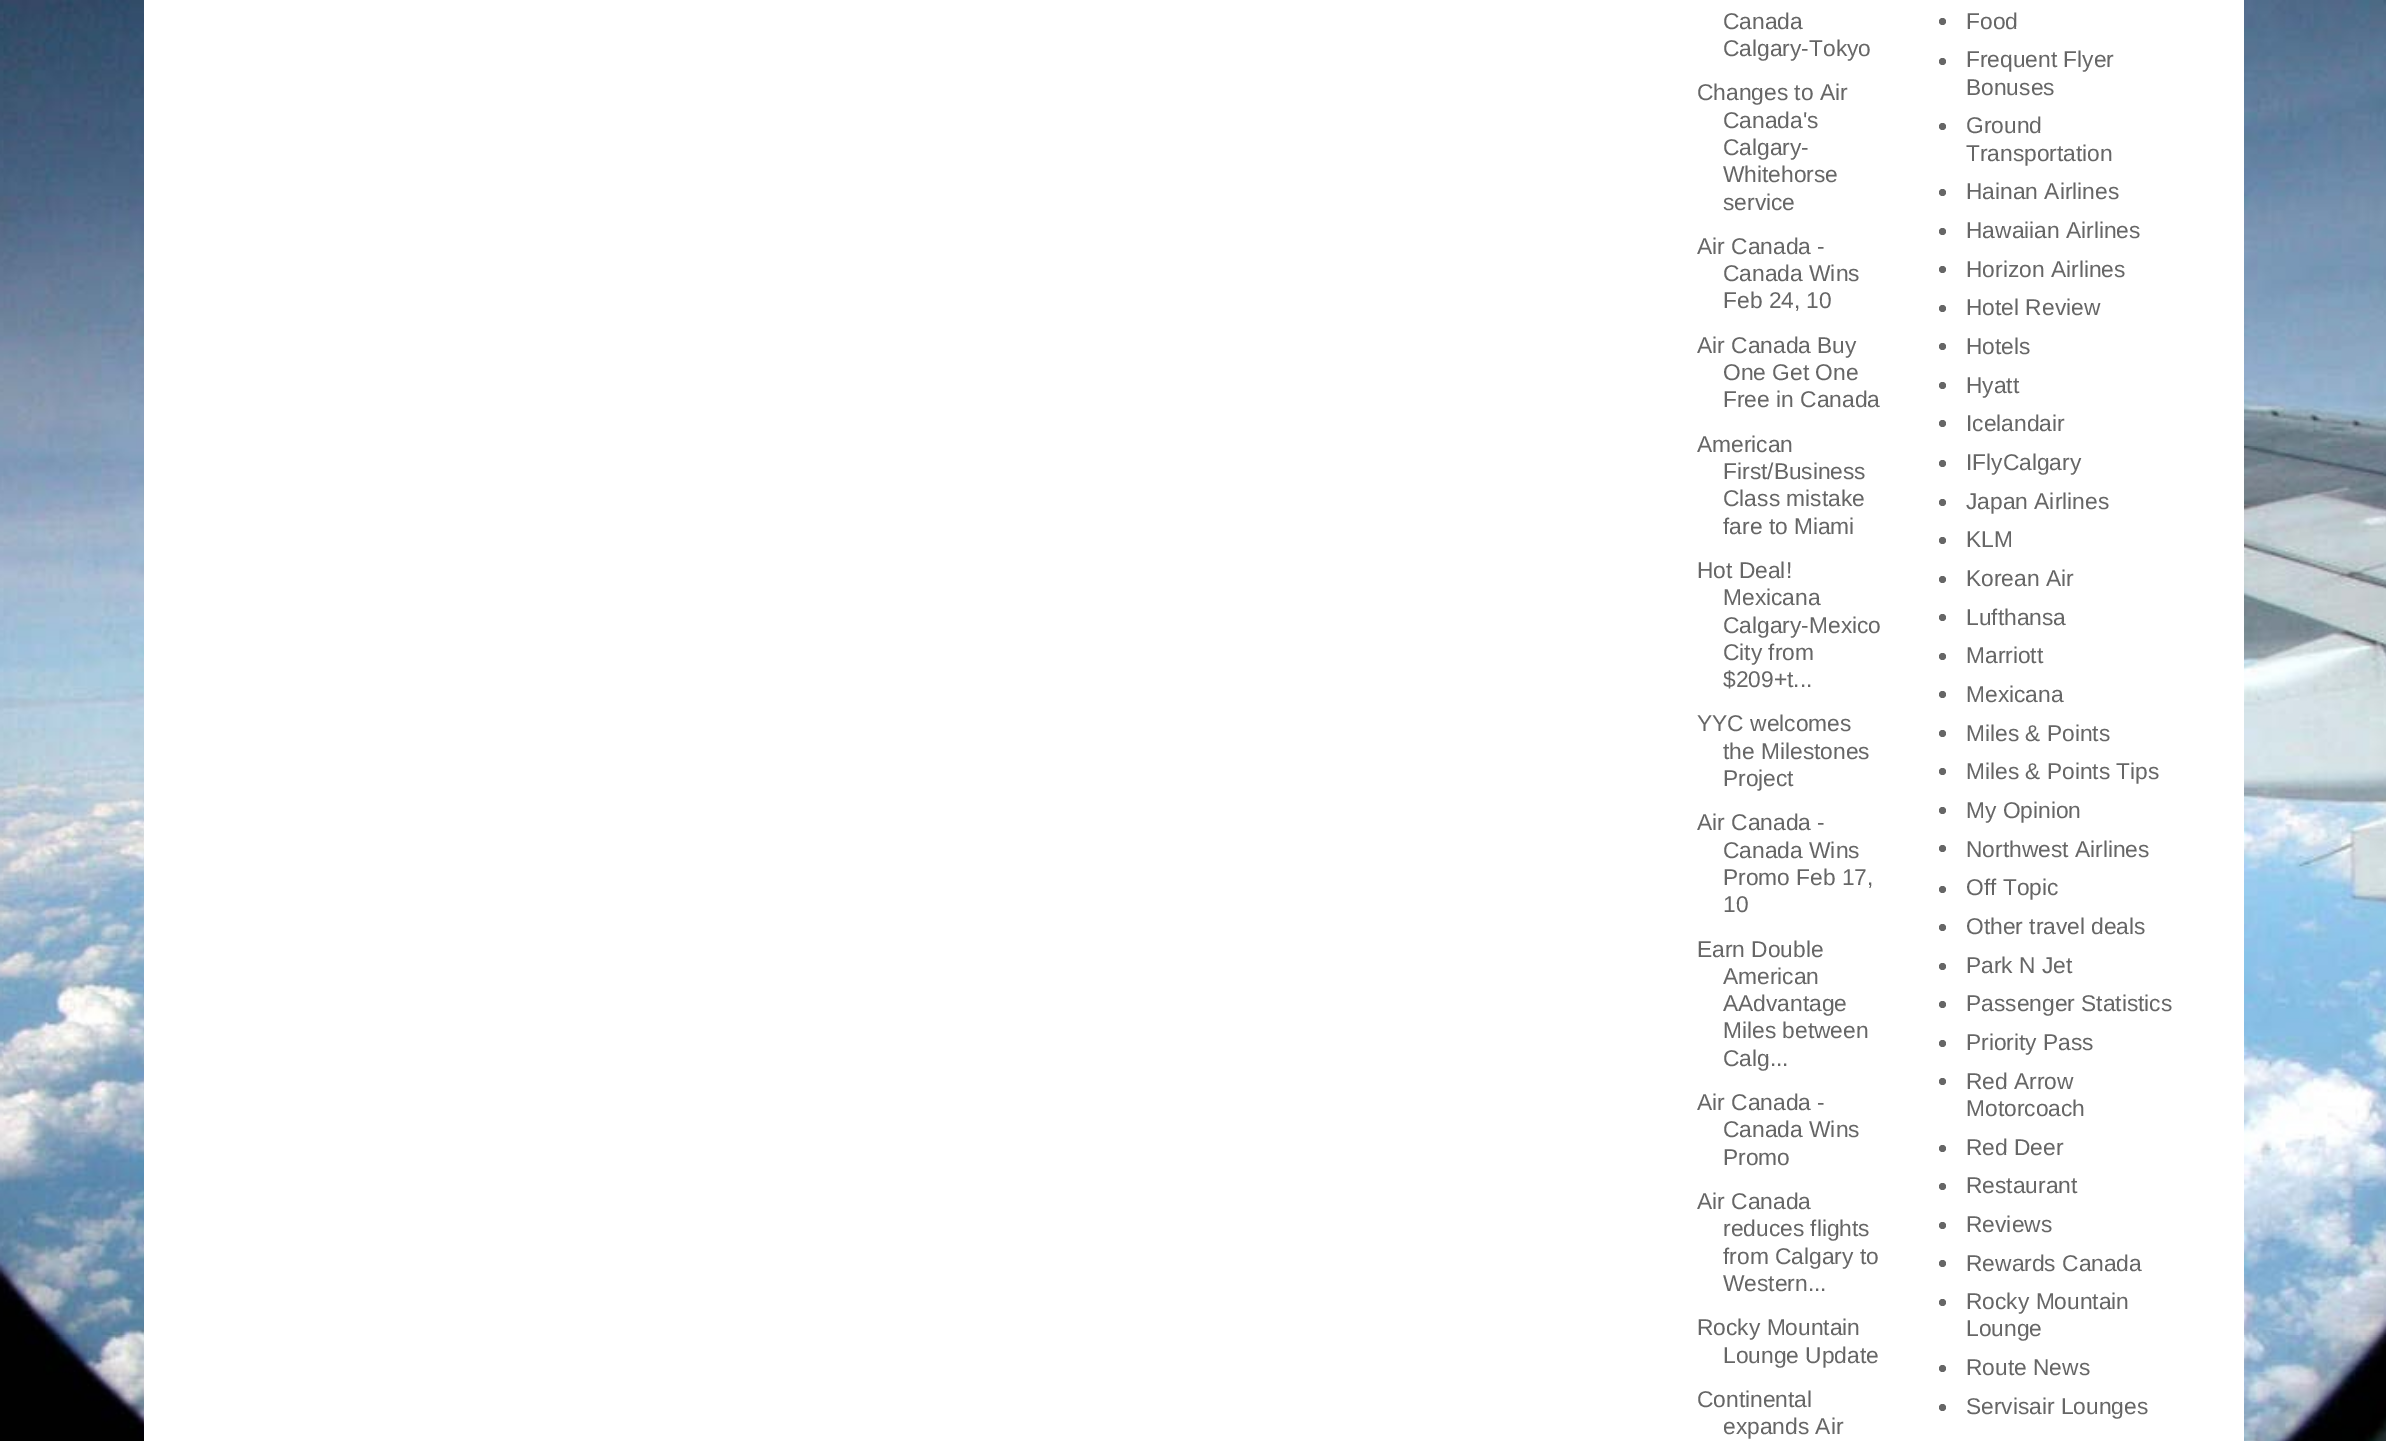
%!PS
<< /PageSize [2386 1441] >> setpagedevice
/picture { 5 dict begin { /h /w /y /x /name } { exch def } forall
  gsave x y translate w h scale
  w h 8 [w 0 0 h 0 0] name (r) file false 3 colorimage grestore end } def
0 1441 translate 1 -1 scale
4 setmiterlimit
1 setgray
0 0 2386 1441 rectfill
(img1.rgb) 0 0 2386 1441 picture
144 0 2100 1441 rectfill
/LiberationSans-Regular [22.75 0 0 -22.75 0 0] selectfont
0.4 setgray
1723 29 moveto (Canada) show
1723 56 moveto (Calgary-Tokyo) show
1697 100 moveto (Changes to Air) show
1723 128 moveto (Canada's) show
1723 155 moveto (Calgary-) show
1723 182 moveto (Whitehorse) show
1723 210 moveto (service) show
1697 254 moveto (Air Canada -) show
1723 281 moveto (Canada Wins) show
1723 308 moveto (Feb 24, 10) show
1697 353 moveto (Air Canada Buy) show
1723 380 moveto (One Get One) show
1723 407 moveto (Free in Canada) show
1697 452 moveto (American) show
1723 479 moveto (First/Business) show
1723 506 moveto (Class mistake) show
1723 534 moveto (fare to Miami) show
1697 578 moveto (Hot Deal!) show
1723 605 moveto (Mexicana) show
1723 633 moveto (Calgary-Mexico) show
1723 660 moveto (City from) show
1723 687 moveto ($209+t...) show
1697 731 moveto (YYC welcomes) show
1723 759 moveto (the Milestones) show
1723 786 moveto (Project) show
1697 830 moveto (Air Canada -) show
1723 858 moveto (Canada Wins) show
1723 885 moveto (Promo Feb 17,) show
1723 912 moveto (10) show
1697 957 moveto (Earn Double) show
1723 984 moveto (American) show
1723 1011 moveto (AAdvantage) show
1723 1038 moveto (Miles between) show
1723 1066 moveto (Calg...) show
1697 1110 moveto (Air Canada -) show
1723 1137 moveto (Canada Wins) show
1723 1165 moveto (Promo) show
1697 1209 moveto (Air Canada) show
1723 1236 moveto (reduces flights) show
1723 1264 moveto (from Calgary to) show
1723 1291 moveto (Western...) show
1697 1335 moveto (Rocky Mountain) show
1723 1363 moveto (Lounge Update) show
1697 1407 moveto (Continental) show
1723 1434 moveto (expands Air) show
newpath 1942.5 21.5 3.5 0 360 arc closepath fill
1966 29 moveto (Food) show
newpath 1942.5 61.5 3.5 0 360 arc closepath fill
1966 67 moveto (Frequent Flyer) show
1966 95 moveto (Bonuses) show
newpath 1942.5 126.5 3.5 0 360 arc closepath fill
1966 133 moveto (Ground) show
1966 161 moveto (Transportation) show
newpath 1942.5 192.5 3.5 0 360 arc closepath fill
1966 199 moveto (Hainan Airlines) show
newpath 1942.5 231.5 3.5 0 360 arc closepath fill
1966 238 moveto (Hawaiian Airlines) show
newpath 1942.5 269.5 3.5 0 360 arc closepath fill
1966 277 moveto (Horizon Airlines) show
newpath 1942.5 308.5 3.5 0 360 arc closepath fill
1966 315 moveto (Hotel Review) show
newpath 1942.5 346.5 3.5 0 360 arc closepath fill
1966 354 moveto (Hotels) show
newpath 1942.5 385.5 3.5 0 360 arc closepath fill
1966 393 moveto (Hyatt) show
newpath 1942.5 423.5 3.5 0 360 arc closepath fill
1966 431 moveto (Icelandair) show
newpath 1942.5 463.5 3.5 0 360 arc closepath fill
1966 470 moveto (IFlyCalgary) show
newpath 1942.5 502.5 3.5 0 360 arc closepath fill
1966 509 moveto (Japan Airlines) show
newpath 1942.5 540.5 3.5 0 360 arc closepath fill
1966 547 moveto (KLM) show
newpath 1942.5 579.5 3.5 0 360 arc closepath fill
1966 586 moveto (Korean Air) show
newpath 1942.5 617.5 3.5 0 360 arc closepath fill
1966 625 moveto (Lufthansa) show
newpath 1942.5 656.5 3.5 0 360 arc closepath fill
1966 663 moveto (Marriott) show
newpath 1942.5 694.5 3.5 0 360 arc closepath fill
1966 702 moveto (Mexicana) show
newpath 1942.5 733.5 3.5 0 360 arc closepath fill
1966 741 moveto (Miles & Points) show
newpath 1942.5 771.5 3.5 0 360 arc closepath fill
1966 779 moveto (Miles & Points Tips) show
newpath 1942.5 810.5 3.5 0 360 arc closepath fill
1966 818 moveto (My Opinion) show
newpath 1942.5 848.5 3.5 0 360 arc closepath fill
1966 857 moveto (Northwest Airlines) show
newpath 1942.5 889.5 3.5 0 360 arc closepath fill
1966 895 moveto (Off Topic) show
newpath 1942.5 927.5 3.5 0 360 arc closepath fill
1966 934 moveto (Other travel deals) show
newpath 1942.5 966.5 3.5 0 360 arc closepath fill
1966 973 moveto (Park N Jet) show
newpath 1942.5 1004.5 3.5 0 360 arc closepath fill
1966 1011 moveto (Passenger Statistics) show
newpath 1942.5 1043.5 3.5 0 360 arc closepath fill
1966 1050 moveto (Priority Pass) show
newpath 1942.5 1081.5 3.5 0 360 arc closepath fill
1966 1089 moveto (Red Arrow) show
1966 1116 moveto (Motorcoach) show
newpath 1942.5 1148.5 3.5 0 360 arc closepath fill
1966 1155 moveto (Red Deer) show
newpath 1942.5 1186.5 3.5 0 360 arc closepath fill
1966 1193 moveto (Restaurant) show
newpath 1942.5 1225.5 3.5 0 360 arc closepath fill
1966 1232 moveto (Reviews) show
newpath 1942.5 1263.5 3.5 0 360 arc closepath fill
1966 1271 moveto (Rewards Canada) show
newpath 1942.5 1302.5 3.5 0 360 arc closepath fill
1966 1309 moveto (Rocky Mountain) show
1966 1336 moveto (Lounge) show
newpath 1942.5 1368.5 3.5 0 360 arc closepath fill
1966 1375 moveto (Route News) show
newpath 1942.5 1407.5 3.5 0 360 arc closepath fill
1966 1414 moveto (Servisair Lounges) show
showpage
